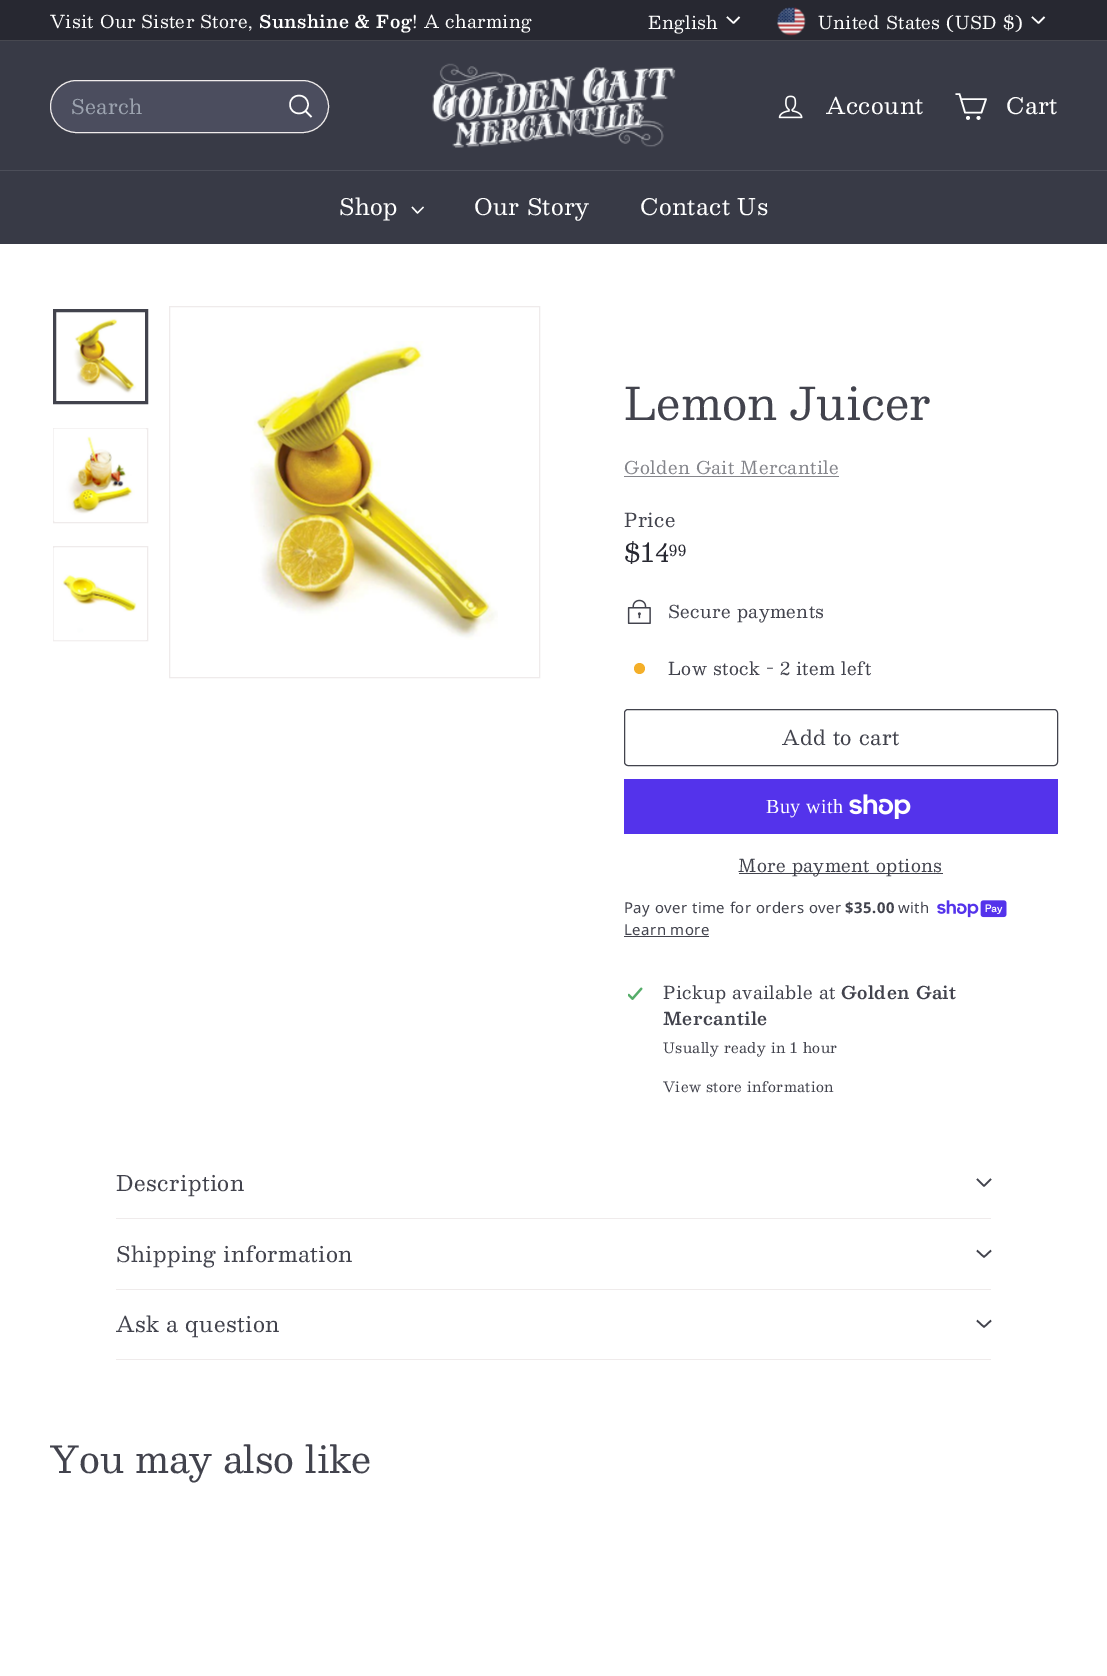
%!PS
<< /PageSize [1107 1676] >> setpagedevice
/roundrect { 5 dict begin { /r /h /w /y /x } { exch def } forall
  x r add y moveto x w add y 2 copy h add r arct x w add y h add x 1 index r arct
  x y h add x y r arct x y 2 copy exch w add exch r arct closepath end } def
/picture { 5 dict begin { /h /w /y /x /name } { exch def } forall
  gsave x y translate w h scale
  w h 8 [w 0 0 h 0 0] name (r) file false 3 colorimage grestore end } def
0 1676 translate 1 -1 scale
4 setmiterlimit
1 setgray
0 0 1107 1676 rectfill
0.153 0.157 0.192 setrgbcolor
0 0 1107 40 rectfill
/Besley-Regular [17.5 0 0 -17.5 0 0] selectfont
1 setgray
50 28 moveto 0.45 0 (Visit Our Sister Store,) ashow
/Besley-SemiBold [17.5 0 0 -17.5 0 0] selectfont
259 28 moveto 0.45 0 (Sunshine & Fog) ashow
/Besley-Regular [17.5 0 0 -17.5 0 0] selectfont
412 28 moveto 0.45 0 (! A charming) ashow
648 29 moveto 0.45 0 (English) ashow
1.5 setlinewidth
1 setlinejoin
newpath 727 17 moveto 733.5 23 lineto 739.5 17 lineto stroke
(img1.rgb) 777 7 29 29 picture
818 29 moveto 0.45 0 (United States \(USD $\)) ashow
newpath 1032 17 moveto 1038.5 23 lineto 1044.5 17 lineto stroke
0.278 0.282 0.314 setrgbcolor
0 40 1107 1 rectfill
0.22 0.227 0.275 setrgbcolor
0 41 1107 129 rectfill
0.294 0.302 0.369 setrgbcolor
50.5 80.5 278 52 26 roundrect gsave fill grestore
0.937 0.922 0.922 setrgbcolor
1 setlinewidth
0 setlinejoin
stroke
/Besley-Regular [20 0 0 -20 0 0] selectfont
0.612 0.639 0.686 setrgbcolor
71 114 moveto 0.5 0 (Search) ashow
1 setgray
1.5 setlinewidth
1 setlinejoin
newpath 308 104.5 moveto 308 116.5 290 116.5 290 104.5 curveto 290 92.5 308 92.5 308 104.5 curveto 311.5 117 moveto 305.5 111 lineto stroke
(img2.rgb) 432 63 244 85 picture
(img3.rgb) 778 95 25 24 picture
/Besley-Regular [22.5 0 0 -22.5 0 0] selectfont
826 114 moveto 0.45 0 (Account) ashow
1.6 setlinewidth
newpath 961 99 moveto 986 99 lineto 981.5 112.5 lineto 965 112.5 lineto 959.5 94 lineto 955.5 94 lineto stroke
0 setlinejoin
newpath 968 117.9 1.1 0 360 arc closepath stroke
newpath 978.5 117.9 1.1 0 360 arc closepath stroke
1006 114 moveto 0.45 0 (Cart) ashow
0.22 0.227 0.275 setrgbcolor
0 171 1107 73 rectfill
0.298 0.306 0.349 setrgbcolor
0 170 1107 1 rectfill
1 setgray
339 215 moveto 0.45 0 (Shop) ashow
1.3 setlinewidth
1 setlinejoin
newpath 412 207 moveto 417.5 213 lineto 423.5 207 lineto stroke
474 215 moveto 0.45 0 (Our Story) ashow
640 215 moveto 0.45 0 (Contact Us) ashow
(img4.rgb) 56 312 89 89 picture
0.259 0.263 0.302 setrgbcolor
3 setlinewidth
0 setlinejoin
54.5 310.5 92 92 rectstroke
0.937 0.922 0.922 setrgbcolor
1 setlinewidth
53.5 428.5 94 94 rectstroke
(img5.rgb) 53 428 93 93 picture
53.5 546.5 94 94 rectstroke
(img6.rgb) 53 548 93 93 picture
169.5 306.5 370 371 rectstroke
(img7.rgb) 250 341 248 299 picture
/Besley-Regular [44.5 0 0 -44.5 0 0] selectfont
0.259 0.263 0.302 setrgbcolor
624 420 moveto (Lemon Juicer) show
/Besley-Regular [17.5 0 0 -17.5 0 0] selectfont
0.518 0.522 0.545 setrgbcolor
624 474 moveto 0.45 0 (Golden Gait Mercantile) ashow
624 476 215 1 rectfill
/Besley-Regular [19 0 0 -19 0 0] selectfont
0.259 0.263 0.302 setrgbcolor
624 527 moveto 0.45 0 (Price) ashow
/Besley-Regular [25 0 0 -25 0 0] selectfont
0.153 0.157 0.192 setrgbcolor
624 562 moveto 0.45 0 ($14) ashow
/Besley-Regular [15 0 0 -15 0 0] selectfont
669 556 moveto 0.45 0 (99) ashow
(img8.rgb) 627 599 24 25 picture
/Besley-Regular [17.5 0 0 -17.5 0 0] selectfont
0.259 0.263 0.302 setrgbcolor
668 618 moveto 0.45 0 (Secure payments) ashow
0.957 0.686 0.161 setrgbcolor
newpath 639.5 668.5 5.5 0 360 arc closepath fill
0.259 0.263 0.302 setrgbcolor
668 675 moveto 0.45 0 (Low stock - 2 item left) ashow
624.5 709.5 433 56 3.5 roundrect stroke
/Besley-Regular [20 0 0 -20 0 0] selectfont
782 745 moveto 0.5 0 (Add to cart) ashow
0.329 0.2 0.922 setrgbcolor
624 779 434 55 rectfill
/LiberationSerif-Regular [20 0 0 -20 0 0] selectfont
1 setgray
766 813 moveto 0.45 0 (Buy with) ashow
(img9.rgb) 849 794 62 25 picture
0.259 0.263 0.302 setrgbcolor
739 873 204 1 rectfill
/Besley-Regular [17.5 0 0 -17.5 0 0] selectfont
738 872 moveto 0.45 0 (More payment options) ashow
/NotoSans-Regular [14.9 0 0 -14.9 0 0] selectfont
624 913 moveto 0.45 0 (Pay over time for orders over) ashow
/NotoSans-Bold [14.9 0 0 -14.9 0 0] selectfont
845 913 moveto 0.45 0 ($35.00) ashow
/NotoSans-Regular [14.9 0 0 -14.9 0 0] selectfont
898 913 moveto 0.45 0 (with) ashow
(img10.rgb) 937 900 70 18 picture
624 935 moveto 0.45 0 (Learn more) ashow
624 936 85 1 rectfill
(img11.rgb) 628 987 15 13 picture
/Besley-Regular [17.5 0 0 -17.5 0 0] selectfont
663 999 moveto 0.45 0 (Pickup available at) ashow
/Besley-SemiBold [17.5 0 0 -17.5 0 0] selectfont
841 999 moveto 0.45 0 (Golden Gait) ashow
663 1025 moveto 0.45 0 (Mercantile) ashow
/Besley-Regular [14 0 0 -14 0 0] selectfont
663 1053 moveto 0.45 0 (Usually ready in 1 hour) ashow
663 1092 moveto 0.45 0 (View store information) ashow
0.937 0.922 0.922 setrgbcolor
116 1218 875 1 rectfill
/Besley-Regular [21.25 0 0 -21.25 0 0] selectfont
0.259 0.263 0.302 setrgbcolor
116 1191 moveto 0.5 0 (Description) ashow
1.6 setlinewidth
1 setlinejoin
newpath 977 1179 moveto 984 1186 lineto 991 1179 lineto stroke
0.937 0.922 0.922 setrgbcolor
116 1289 875 1 rectfill
0.259 0.263 0.302 setrgbcolor
116 1262 moveto 0.5 0 (Shipping information) ashow
newpath 977 1250.5 moveto 984 1257 lineto 991 1250.5 lineto stroke
0.937 0.922 0.922 setrgbcolor
116 1359 875 1 rectfill
0.259 0.263 0.302 setrgbcolor
116 1332 moveto 0.5 0 (Ask a question) ashow
newpath 977 1320.5 moveto 984 1327 lineto 991 1320.5 lineto stroke
/Besley-Regular [36.75 0 0 -36.75 0 0] selectfont
50 1473 moveto (You may also like) show
showpage
